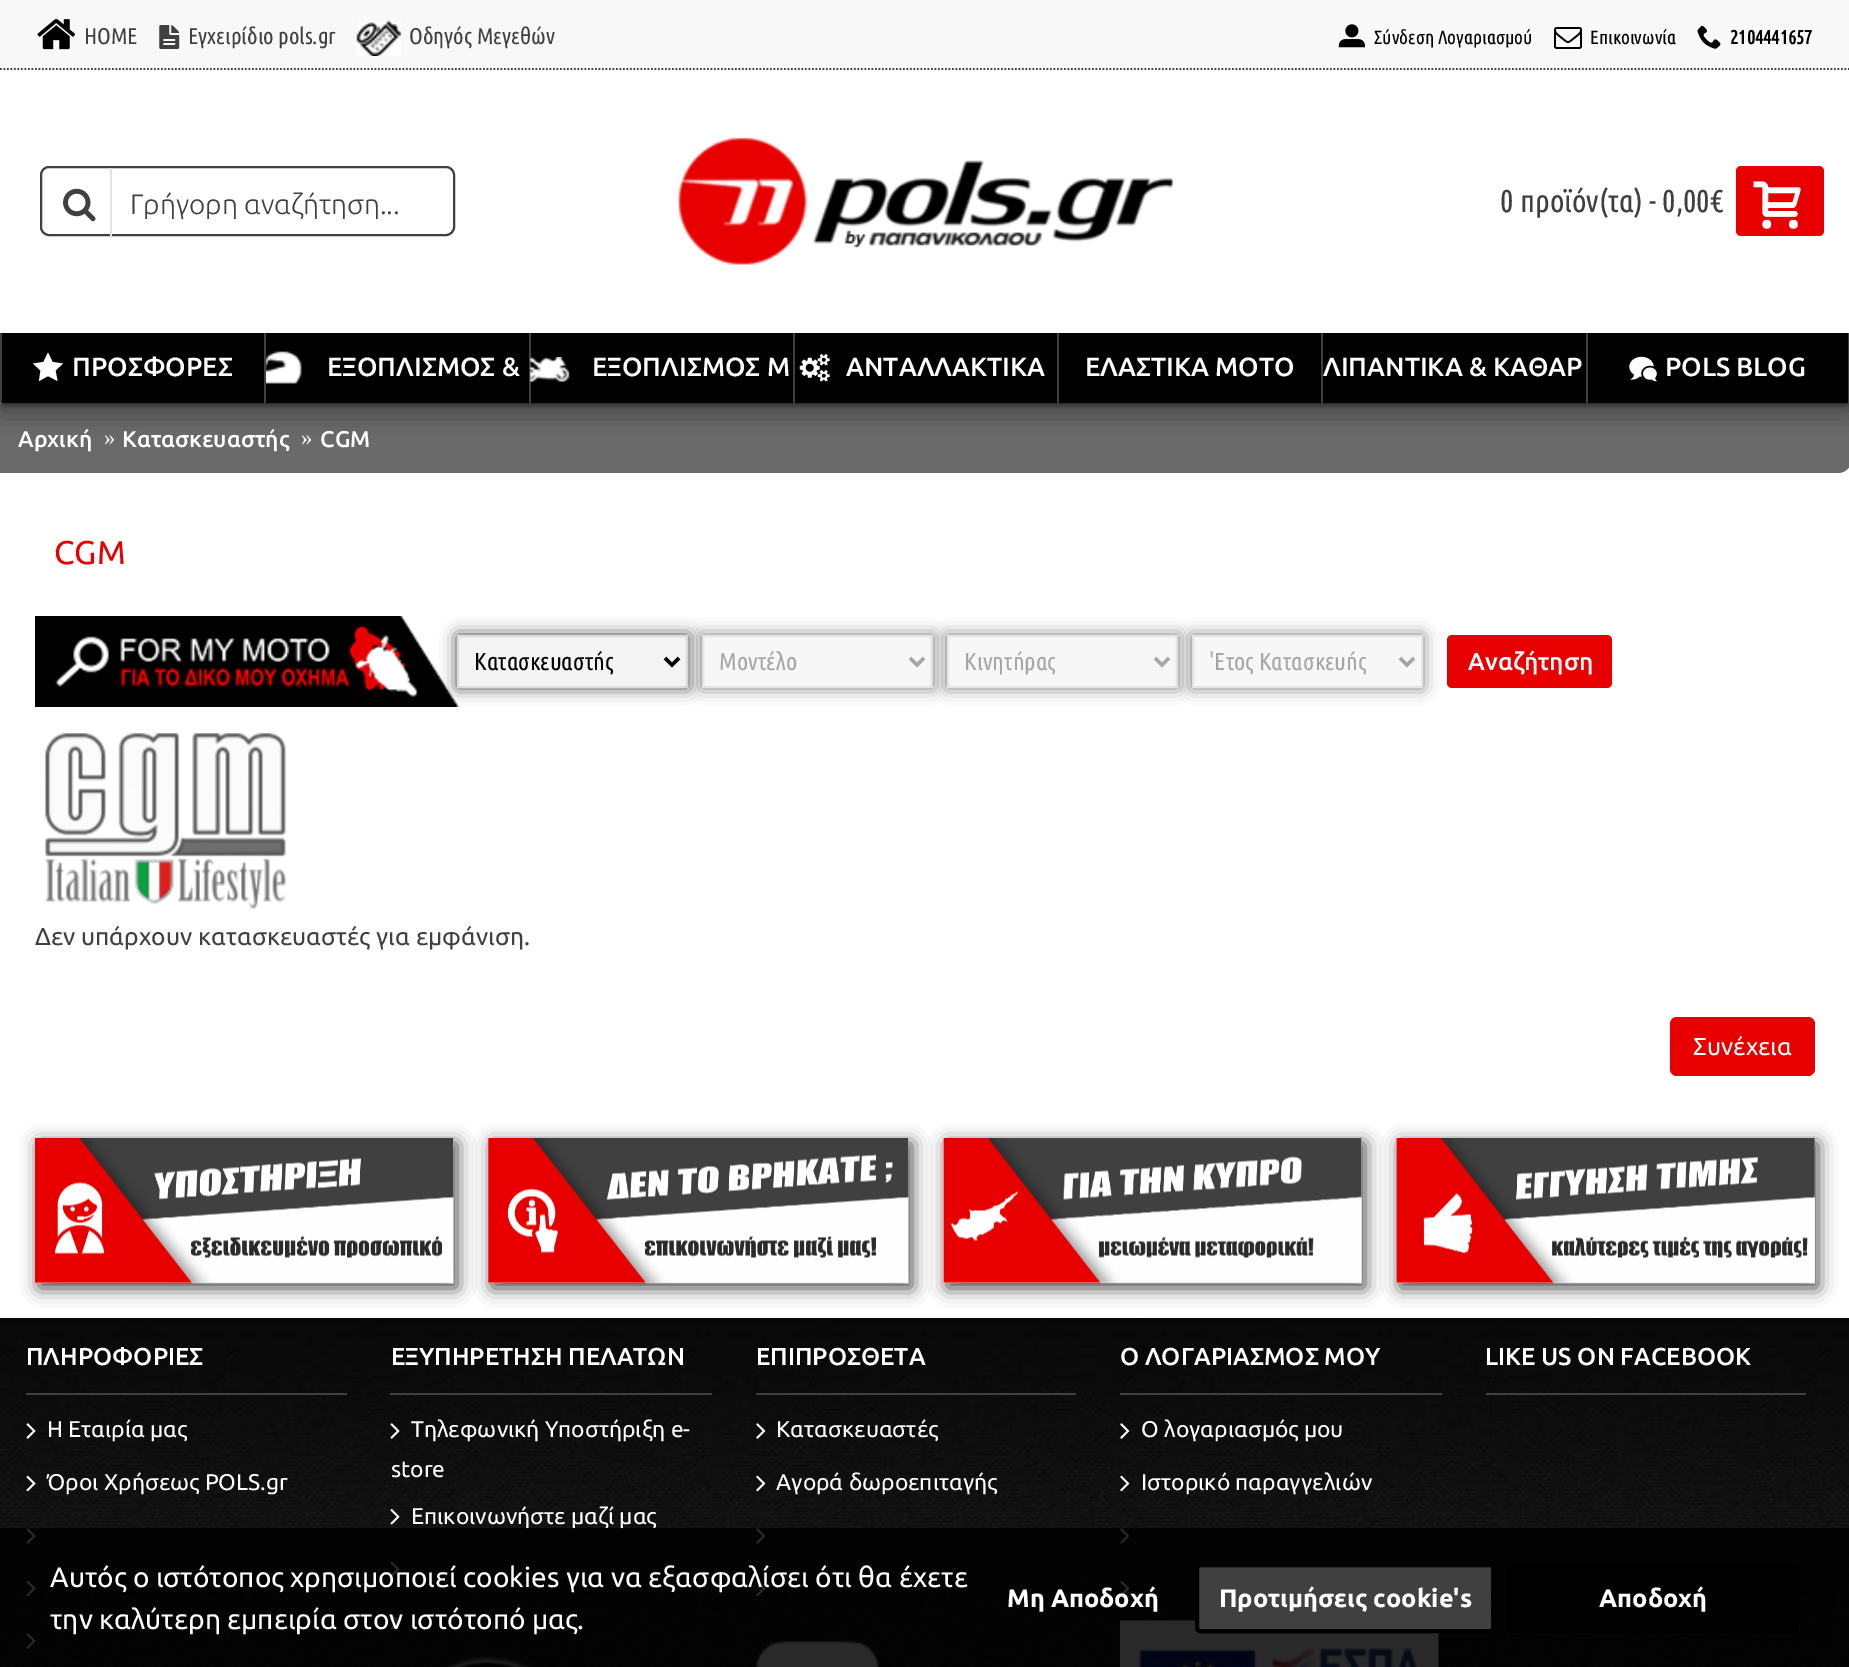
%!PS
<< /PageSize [1849 1667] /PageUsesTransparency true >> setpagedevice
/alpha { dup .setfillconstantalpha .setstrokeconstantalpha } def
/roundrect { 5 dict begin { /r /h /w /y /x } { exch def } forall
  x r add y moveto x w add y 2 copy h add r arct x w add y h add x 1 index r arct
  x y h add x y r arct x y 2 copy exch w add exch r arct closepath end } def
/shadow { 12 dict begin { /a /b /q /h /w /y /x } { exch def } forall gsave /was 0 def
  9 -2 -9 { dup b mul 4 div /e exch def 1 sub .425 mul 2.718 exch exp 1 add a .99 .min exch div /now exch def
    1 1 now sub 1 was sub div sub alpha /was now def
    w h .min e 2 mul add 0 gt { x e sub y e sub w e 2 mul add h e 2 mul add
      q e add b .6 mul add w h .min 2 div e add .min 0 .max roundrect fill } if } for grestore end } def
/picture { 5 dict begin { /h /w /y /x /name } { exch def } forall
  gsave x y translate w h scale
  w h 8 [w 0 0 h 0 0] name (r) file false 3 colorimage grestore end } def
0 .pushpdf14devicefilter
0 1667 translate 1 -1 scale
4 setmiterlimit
1 setgray
0 0 1849 1667 rectfill
0.416 setgray
newpath 2 403 moveto 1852 403 lineto 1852 459 lineto 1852 466.5 1845.5 473 1838 473 curveto 0 473 lineto 0 405 lineto 0 404 1 403 2 403 curveto closepath fill
0 setgray
0 9 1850 402 0 13 0.4 shadow
2 4 1846 399 0 3.5 0.7 shadow
1 setgray
0 70 1849 263 rectfill
0.973 setgray
0 0 1849 70 rectfill
0.251 setgray
1.8 setlinewidth
[1.75 1.75] 0 setdash
newpath 0 69 moveto 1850 69 lineto stroke
(img1.rgb) 37 19 39 31 picture
/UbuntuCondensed-Regular [22.75 0 0 -22.75 0 0] selectfont
84 44 moveto (HOME) show
(img2.rgb) 159 25 21 24 picture
188 44 moveto (Εγχειρίδιο pols.gr) show
(img3.rgb) 356 20 45 36 picture
409 44 moveto (Οδηγός Μεγεθών) show
(img4.rgb) 1338 24 27 24 picture
/UbuntuCondensed-Regular [19.25 0 0 -19.25 0 0] selectfont
0 setgray
1374 44 moveto (Σύνδεση Λογαριασμού) show
(img5.rgb) 1554 27 28 22 picture
1590 44 moveto (Επικοινωνία) show
(img6.rgb) 1697 25 24 24 picture
/UbuntuCondensed-Bold [19.25 0 0 -19.25 0 0] selectfont
1730 44 moveto (2104441657) show
0.251 setgray
2 setlinewidth
[] 0 setdash
41 167 413 68 8 roundrect stroke
0.894 setgray
110 168 2 70 rectfill
(img7.rgb) 63 188 33 34 picture
gsave
130 187 323 32 rectclip
/Ubuntu-Light [28 0 0 -28 0 0] selectfont
0.251 setgray
130 214 moveto (Γρήγορη αναζήτηση...) show
grestore
(img8.rgb) 678 137 495 128 picture
/UbuntuCondensed-Regular [31.5 0 0 -31.5 0 0] selectfont
0.251 setgray
1500 212 moveto (0 προϊόν\(τα\) - 0,00€) show
0.91 0 0 setrgbcolor
1736 166 88 70 5 roundrect fill
(img9.rgb) 1753 181 48 48 picture
0.251 setgray
0 333 2 70 rectfill
0 setgray
2 333 1846 70 rectfill
1 setgray
newpath 63 363.5 moveto 52.5 362 lineto 48 352.5 lineto 43.5 362 lineto 33 363.5 lineto 40.5 370.5 lineto 39 381 lineto 48 376 lineto 57.5 381 lineto 55.5 370.5 lineto closepath fill
/Ubuntu-Medium [26.25 0 0 -26.25 0 0] selectfont
72 376 moveto (ΠΡΟΣΦΟΡΕΣ) show
0.251 setgray
264 333 2 70 rectfill
(img10.rgb) 266 351 36 33 picture
1 setgray
327 376 moveto (ΕΞΟΠΛΙΣΜΟΣ &) show
0.251 setgray
529 333 2 70 rectfill
(img11.rgb) 530 357 40 25 picture
1 setgray
592 376 moveto (ΕΞΟΠΛΙΣΜΟΣ Μ) show
0.251 setgray
793 333 2 70 rectfill
(img12.rgb) 799 354 31 28 picture
1 setgray
846 376 moveto (ΑΝΤΑΛΛΑΚΤΙΚΑ) show
0.251 setgray
1057 333 2 70 rectfill
1 setgray
1085 376 moveto (ΕΛΑΣΤΙΚΑ ΜΟΤΟ) show
0.251 setgray
1321 333 2 70 rectfill
1 setgray
1323 376 moveto (ΛΙΠΑΝΤΙΚΑ & ΚΑΘΑΡ) show
0.251 setgray
1848 333 1 70 rectfill
1586 333 2 70 rectfill
(img13.rgb) 1629 356 28 26 picture
1 setgray
1665 376 moveto (POLS BLOG) show
/Ubuntu-Medium [22.75 0 0 -22.75 0 0] selectfont
18 447 moveto (Αρχική) show
/LiberationSerif-Regular [22.75 0 0 -22.75 0 0] selectfont
104 445 moveto (») show
/Ubuntu-Medium [22.75 0 0 -22.75 0 0] selectfont
122 447 moveto (Κατασκευαστής) show
/LiberationSerif-Regular [22.75 0 0 -22.75 0 0] selectfont
301 445 moveto (») show
/Ubuntu-Medium [22.75 0 0 -22.75 0 0] selectfont
320 447 moveto (CGM) show
/Ubuntu-Regular [33 0 0 -33 0 0] selectfont
0.91 0 0 setrgbcolor
54 564 moveto (CGM) show
(img14.rgb) 35 616 424 91 picture
0.251 setgray
457 635 231 53 0 8 1 shadow
0.957 setgray
newpath 458 636 moveto 687 636 lineto 687 687 lineto 458 687 lineto closepath gsave fill grestore
0.863 setgray
stroke
0 setgray
3.5 setlinewidth
newpath 665 658 moveto 672 665 lineto 679 658 lineto stroke
/UbuntuCondensed-Regular [24.5 0 0 -24.5 0 0] selectfont
474 670 moveto (Κατασκευαστńς) show
gsave
newpath 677 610 moveto 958 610 lineto 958 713 lineto 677 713 lineto closepath 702 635 moveto 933 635 lineto 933 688 lineto 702 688 lineto closepath eoclip newpath
0.251 setgray
702 635 231 53 0 8 0.7 shadow
grestore
0.7 alpha
0.957 setgray
702 635 231 53 rectfill
0.863 setgray
2 setlinewidth
703 636 229 51 rectstroke
1 alpha
0.651 setgray
3.5 setlinewidth
newpath 910 658 moveto 917 665 lineto 924 658 lineto stroke
719 670 moveto (Μοντέλο) show
gsave
newpath 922 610 moveto 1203 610 lineto 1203 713 lineto 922 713 lineto closepath 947 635 moveto 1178 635 lineto 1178 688 lineto 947 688 lineto closepath eoclip newpath
0.251 setgray
947 635 231 53 0 8 0.7 shadow
grestore
0.7 alpha
0.957 setgray
947 635 231 53 rectfill
0.863 setgray
2 setlinewidth
948 636 229 51 rectstroke
1 alpha
0.651 setgray
3.5 setlinewidth
newpath 1155 658 moveto 1162 665 lineto 1169 658 lineto stroke
964 670 moveto (Κινητńρας) show
0.91 0 0 setrgbcolor
1447 635 165 53 5 roundrect fill
gsave
newpath 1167 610 moveto 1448 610 lineto 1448 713 lineto 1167 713 lineto closepath 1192 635 moveto 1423 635 lineto 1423 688 lineto 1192 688 lineto closepath eoclip newpath
0.251 setgray
1192 635 231 53 0 8 0.7 shadow
grestore
0.7 alpha
0.957 setgray
1192 635 231 53 rectfill
0.863 setgray
2 setlinewidth
1193 636 229 51 rectstroke
1 alpha
0.651 setgray
3.5 setlinewidth
newpath 1400 658 moveto 1407 665 lineto 1414 658 lineto stroke
1209 670 moveto ('Eτος Κατασκευńς) show
/Ubuntu-Medium [24.5 0 0 -24.5 0 0] selectfont
1 setgray
1468 670 moveto (Αναζήτηση) show
(img15.rgb) 45 733 241 176 picture
/Ubuntu-Regular [24.5 0 0 -24.5 0 0] selectfont
0.251 setgray
35 945 moveto (Δεν υπάρχουν κατασκευαστές για εμφάνιση.) show
0.91 0 0 setrgbcolor
1670 1017 145 59 7 roundrect fill
1 setgray
1693 1055 moveto (Συνέχεια) show
0.251 setgray
39 1143 418 145 0 9 1 shadow
(img16.rgb) 35 1138 419 146 picture
492 1143 420 145 0 9 1 shadow
(img17.rgb) 488 1138 421 146 picture
947 1143 418 145 0 9 1 shadow
(img18.rgb) 943 1138 419 146 picture
1400 1143 418 145 0 9 1 shadow
(img19.rgb) 1396 1138 419 146 picture
(img20.rgb) 0 1318 1849 349 picture
26 1393 321 2 rectfill
/Ubuntu-Medium [24.5 0 0 -24.5 0 0] selectfont
1 setgray
26 1365 moveto (ΠΛΗΡΟΦΟΡΙΕΣ) show
(img21.rgb) 26 1423 10 16 picture
/Ubuntu-Regular [22.75 0 0 -22.75 0 0] selectfont
47 1437 moveto (Η Εταιρία μας) show
(img22.rgb) 26 1475 10 17 picture
47 1490 moveto (Όροι Χρήσεως POLS.gr) show
(img23.rgb) 26 1528 10 16 picture
(img24.rgb) 26 1580 10 17 picture
(img25.rgb) 26 1633 10 16 picture
0.251 setgray
390 1393 322 2 rectfill
/Ubuntu-Medium [24.5 0 0 -24.5 0 0] selectfont
1 setgray
391 1365 moveto (ΕΞΥΠΗΡΕΤΗΣΗ ΠΕΛΑΤΩΝ) show
(img26.rgb) 390 1423 10 16 picture
/Ubuntu-Regular [22.75 0 0 -22.75 0 0] selectfont
411 1437 moveto (Τηλεφωνική Υποστήριξη e-) show
391 1477 moveto (store) show
(img27.rgb) 390 1509 10 16 picture
411 1524 moveto (Επικοινωνήστε μαζί μας) show
(img28.rgb) 390 1561 10 16 picture
(img29.rgb) 390 1614 10 16 picture
(img30.rgb) 442 1655 91 12 picture
0.251 setgray
756 1393 320 2 rectfill
/Ubuntu-Medium [24.5 0 0 -24.5 0 0] selectfont
1 setgray
756 1365 moveto (ΕΠΙΠΡΟΣΘΕΤΑ) show
(img31.rgb) 756 1423 10 16 picture
/Ubuntu-Regular [22.75 0 0 -22.75 0 0] selectfont
776 1437 moveto (Κατασκευαστές) show
(img32.rgb) 756 1475 10 17 picture
776 1490 moveto (Αγορά δωροεπιταγής) show
(img33.rgb) 756 1528 10 16 picture
(img34.rgb) 756 1580 10 17 picture
(img35.rgb) 756 1641 125 26 picture
0.251 setgray
1120 1393 322 2 rectfill
/Ubuntu-Medium [24.5 0 0 -24.5 0 0] selectfont
1 setgray
1120 1365 moveto (Ο ΛΟΓΑΡΙΑΣΜΟΣ ΜΟΥ) show
(img36.rgb) 1120 1423 10 16 picture
/Ubuntu-Regular [22.75 0 0 -22.75 0 0] selectfont
1141 1437 moveto (O λογαριασμός μου) show
(img37.rgb) 1120 1475 10 17 picture
1141 1490 moveto (Ιστορικό παραγγελιών) show
(img38.rgb) 1120 1528 10 16 picture
(img39.rgb) 1120 1580 10 17 picture
(img40.rgb) 1120 1620 319 47 picture
0.251 setgray
1486 1393 320 2 rectfill
/Ubuntu-Medium [24.5 0 0 -24.5 0 0] selectfont
1 setgray
1485 1365 moveto (LIKE US ON FACEBOOK) show
0.84 alpha
0 setgray
0 1528 1849 139 rectfill
/Ubuntu-Regular [28 0 0 -28 0 0] selectfont
1 alpha
1 setgray
50 1587 moveto (Αυτός ο ιστότοπος χρησιμοποιεί cookies για να εξασφαλίσει ότι θα έχετε) show
50 1629 moveto (την καλύτερη εμπειρία στον ιστότοπό μας.) show
/Ubuntu-Bold [25.25 0 0 -25.25 0 0] selectfont
1007 1607 moveto (Μη Αποδοχή) show
0.251 setgray
1197 1565 296 66 3 roundrect gsave fill grestore
0 setgray
4 setlinewidth
stroke
1 setgray
1219 1607 moveto (Προτιμήσεις cookie's) show
0 setgray
1507 1563 292 70 5 roundrect fill
1 setgray
1599 1607 moveto (Αποδοχή) show
.poppdf14devicefilter showpage
